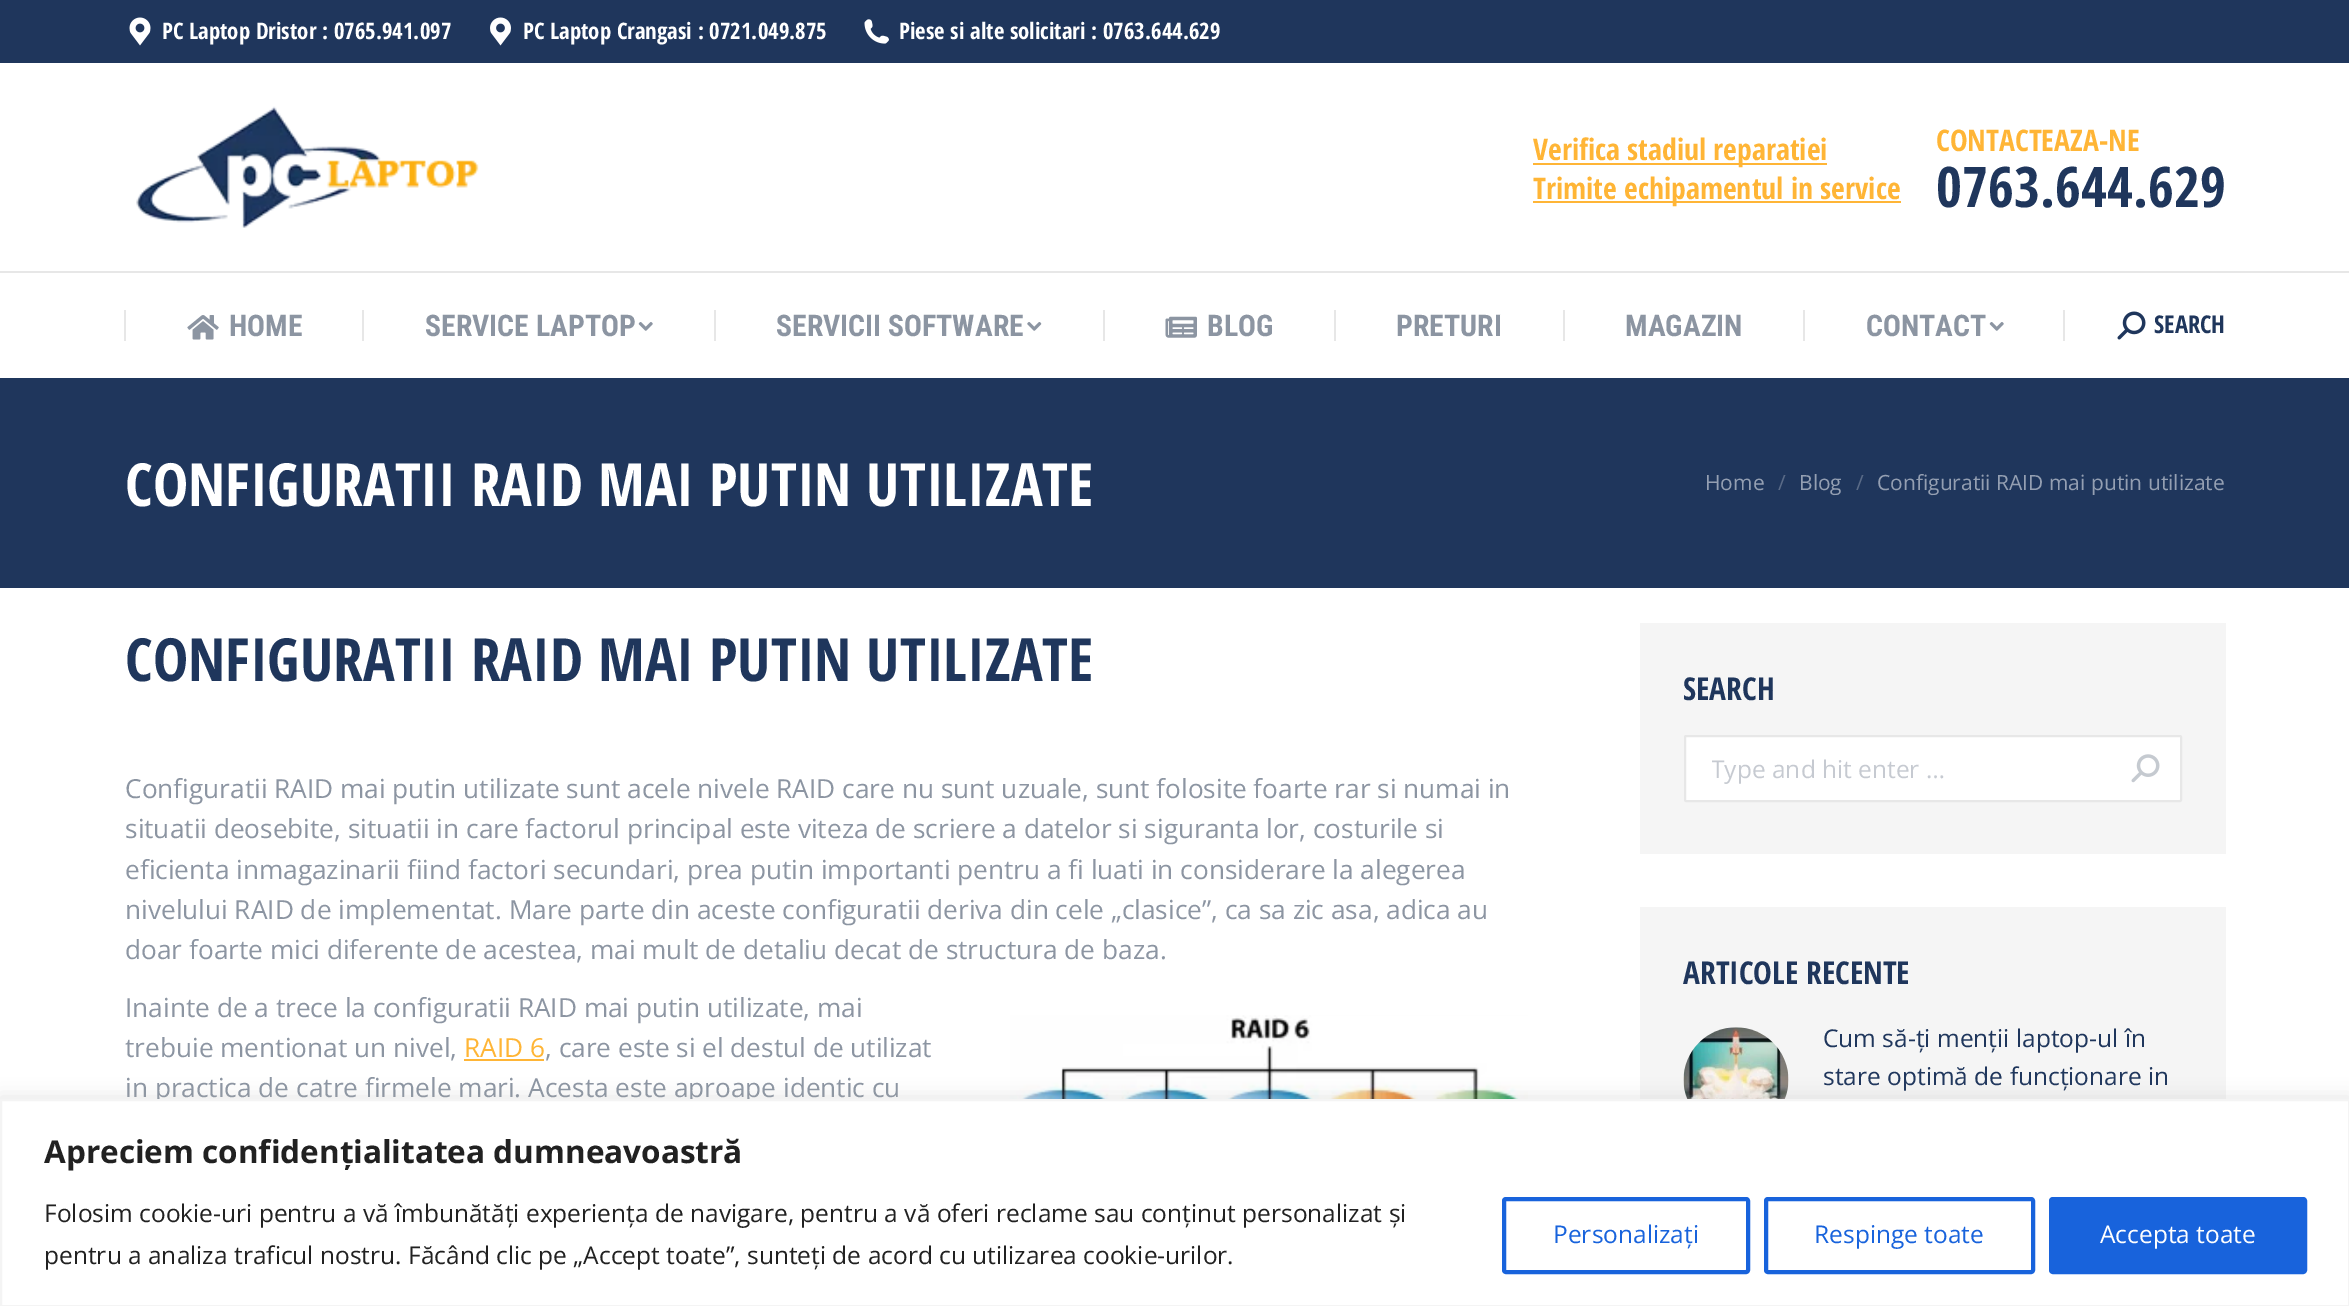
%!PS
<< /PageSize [2349 1306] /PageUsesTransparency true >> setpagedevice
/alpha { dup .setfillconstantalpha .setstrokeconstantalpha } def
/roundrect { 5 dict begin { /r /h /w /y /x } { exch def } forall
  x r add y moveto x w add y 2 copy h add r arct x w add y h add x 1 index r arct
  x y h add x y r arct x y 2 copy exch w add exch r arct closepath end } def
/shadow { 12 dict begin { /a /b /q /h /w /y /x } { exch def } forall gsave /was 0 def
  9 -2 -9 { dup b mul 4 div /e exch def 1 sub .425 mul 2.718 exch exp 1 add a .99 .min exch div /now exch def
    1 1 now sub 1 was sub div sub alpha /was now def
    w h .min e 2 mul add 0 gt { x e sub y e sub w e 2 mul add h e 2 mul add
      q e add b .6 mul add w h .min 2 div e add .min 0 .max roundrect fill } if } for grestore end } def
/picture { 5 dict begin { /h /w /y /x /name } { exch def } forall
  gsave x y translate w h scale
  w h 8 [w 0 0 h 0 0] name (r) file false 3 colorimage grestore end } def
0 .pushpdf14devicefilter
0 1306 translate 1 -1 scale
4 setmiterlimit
1 setgray
0 0 2349 1306 rectfill
0.122 0.212 0.361 setrgbcolor
0 0 2349 63 rectfill
(img1.rgb) 129 17 22 29 picture
/OpenSansCondensed-Bold [22.75 0 0 -22.75 0 0] selectfont
1 setgray
162 39 moveto (PC Laptop Dristor : 0765.941.097) show
(img2.rgb) 490 17 21 29 picture
523 39 moveto (PC Laptop Crangasi : 0721.049.875) show
(img3.rgb) 864 19 25 25 picture
899 39 moveto (Piese si alte solicitari : 0763.644.629) show
(img4.rgb) 136 106 343 122 picture
1 0.71 0.212 setrgbcolor
1533 163 294 2 rectfill
/OpenSansCondensed-Bold [29.75 0 0 -29.75 0 0] selectfont
1533 160 moveto (Verifica stadiul reparatiei) show
1533 201 368 2 rectfill
1533 199 moveto (Trimite echipamentul in service) show
1936 151 moveto (CONTACTEAZA-NE) show
/OpenSansCondensed-Bold [56 0 0 -56 0 0] selectfont
0.122 0.212 0.361 setrgbcolor
1936 207 moveto (0763.644.629) show
0.906 setgray
0 271 2349 2 rectfill
124 310 2 31 rectfill
(img5.rgb) 187 315 32 25 picture
/RobotoCondensed-Bold [29.75 0 0 -29.75 0 0] selectfont
0.549 0.584 0.635 setrgbcolor
229 336 moveto (HOME) show
0.906 setgray
362 310 2 31 rectfill
0.549 0.584 0.635 setrgbcolor
425 336 moveto (SERVICE LAPTOP) show
(img6.rgb) 638 322 15 9 picture
0.906 setgray
714 310 2 31 rectfill
0.549 0.584 0.635 setrgbcolor
776 336 moveto (SERVICII SOFTWARE) show
(img7.rgb) 1027 322 15 9 picture
0.906 setgray
1103 310 2 31 rectfill
(img8.rgb) 1165 316 32 22 picture
0.549 0.584 0.635 setrgbcolor
1207 336 moveto (BLOG) show
0.906 setgray
1334 310 2 31 rectfill
0.549 0.584 0.635 setrgbcolor
1396 336 moveto (PRETURI) show
0.906 setgray
1563 310 2 31 rectfill
0.549 0.584 0.635 setrgbcolor
1625 336 moveto (MAGAZIN) show
0.906 setgray
1803 310 2 31 rectfill
0.549 0.584 0.635 setrgbcolor
1866 336 moveto (CONTACT) show
(img6.rgb) 1989 322 15 9 picture
0.906 setgray
2063 310 2 31 rectfill
(img9.rgb) 2117 311 29 29 picture
/OpenSansCondensed-Bold [24.5 0 0 -24.5 0 0] selectfont
0.122 0.212 0.361 setrgbcolor
2154 333 moveto (SEARCH) show
0 378 2349 210 rectfill
/OpenSansCondensed-Bold [59.5 0 0 -59.5 0 0] selectfont
1 setgray
125 506 moveto (CONFIGURATII RAID MAI PUTIN UTILIZATE) show
/OpenSans-Regular [21 0 0 -21 0 0] selectfont
0.58 0.624 0.698 setrgbcolor
1705 490 moveto (Home) show
0.353 0.42 0.529 setrgbcolor
1778 490 moveto (/) show
0.58 0.624 0.698 setrgbcolor
1799 490 moveto (Blog) show
0.353 0.42 0.529 setrgbcolor
1856 490 moveto (/) show
0.58 0.624 0.698 setrgbcolor
1877 490 moveto (Configuratii RAID mai putin utilizate) show
/OpenSansCondensed-Bold [59.5 0 0 -59.5 0 0] selectfont
0.122 0.212 0.361 setrgbcolor
125 681 moveto (CONFIGURATII RAID MAI PUTIN UTILIZATE) show
/OpenSans-Regular [26.25 0 0 -26.25 0 0] selectfont
0.549 0.584 0.635 setrgbcolor
125 798 moveto (Configuratii RAID mai putin utilizate sunt acele nivele RAID care nu sunt uzuale, sunt folosite foarte rar si numai in) show
125 838 moveto (situatii deosebite, situatii in care factorul principal este viteza de scriere a datelor si siguranta lor, costurile si) show
125 879 moveto (eficienta inmagazinarii fiind factori secundari, prea putin importanti pentru a fi luati in considerare la alegerea) show
125 919 moveto (nivelului RAID de implementat. Mare parte din aceste configuratii deriva din cele „clasice”, ca sa zic asa, adica au) show
125 959 moveto (doar foarte mici diferente de acestea, mai mult de detaliu decat de structura de baza.) show
125 1017 moveto (Inainte de a trece la configuratii RAID mai putin utilizate, mai) show
125 1057 moveto (trebuie mentionat un nivel,) show
1 0.71 0.212 setrgbcolor
464 1057 moveto (RAID 6) show
464 1059 80 2 rectfill
0.549 0.584 0.635 setrgbcolor
545 1057 moveto (, care este si el destul de utilizat) show
125 1097 moveto (in practica de catre firmele mari. Acesta este aproape identic cu) show
(img10.rgb) 1009 1015 519 84 picture
0.961 setgray
1640 623 586 231 rectfill
/OpenSansCondensed-Bold [31.5 0 0 -31.5 0 0] selectfont
0.122 0.212 0.361 setrgbcolor
1683 700 moveto (SEARCH) show
1 setgray
1685 736 496 65 1 roundrect gsave fill grestore
0.906 setgray
2 setlinewidth
stroke
gsave
1712 753 416 33 rectclip
/OpenSans-Regular [24.5 0 0 -24.5 0 0] selectfont
0.776 0.792 0.82 setrgbcolor
1711 778 moveto (Type and hit enter …) show
grestore
(img11.rgb) 2131 754 29 29 picture
0.961 setgray
1640 907 586 192 rectfill
0.122 0.212 0.361 setrgbcolor
1683 984 moveto (ARTICOLE RECENTE) show
(img12.rgb) 1683 1027 106 72 picture
/OpenSans-Regular [24.5 0 0 -24.5 0 0] selectfont
1823 1047 moveto (Cum să-ți menții laptop-ul în) show
1823 1085 moveto (stare optimă de funcționare in) show
0.675 0.671 0.671 setrgbcolor
0 1097 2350 209 0 9 0.3 shadow
1 setgray
newpath 1 1100 moveto 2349 1100 lineto 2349 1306 lineto 1 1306 lineto closepath gsave fill grestore
0.957 setgray
stroke
/OpenSans-Bold [31.5 0 0 -31.5 0 0] selectfont
0.129 setgray
44 1163 moveto (Apreciem confidențialitatea dumneavoastră) show
/OpenSans-Regular [24.5 0 0 -24.5 0 0] selectfont
44 1222 moveto (Folosim cookie-uri pentru a vă îmbunătăți experiența de navigare, pentru a vă oferi reclame sau conținut personalizat și) show
44 1264 moveto (pentru a analiza traficul nostru. Făcând clic pe „Accept toate”, sunteți de acord cu utilizarea cookie-urilor.) show
0.094 0.388 0.863 setrgbcolor
4 setlinewidth
1504 1199 244 73 2 roundrect stroke
1553 1243 moveto (Personalizați) show
1766 1199 267 73 2 roundrect stroke
1814 1243 moveto (Respinge toate) show
2051 1199 254 73 2 roundrect gsave fill grestore
stroke
1 setgray
2100 1243 moveto (Accepta toate) show
.poppdf14devicefilter showpage
